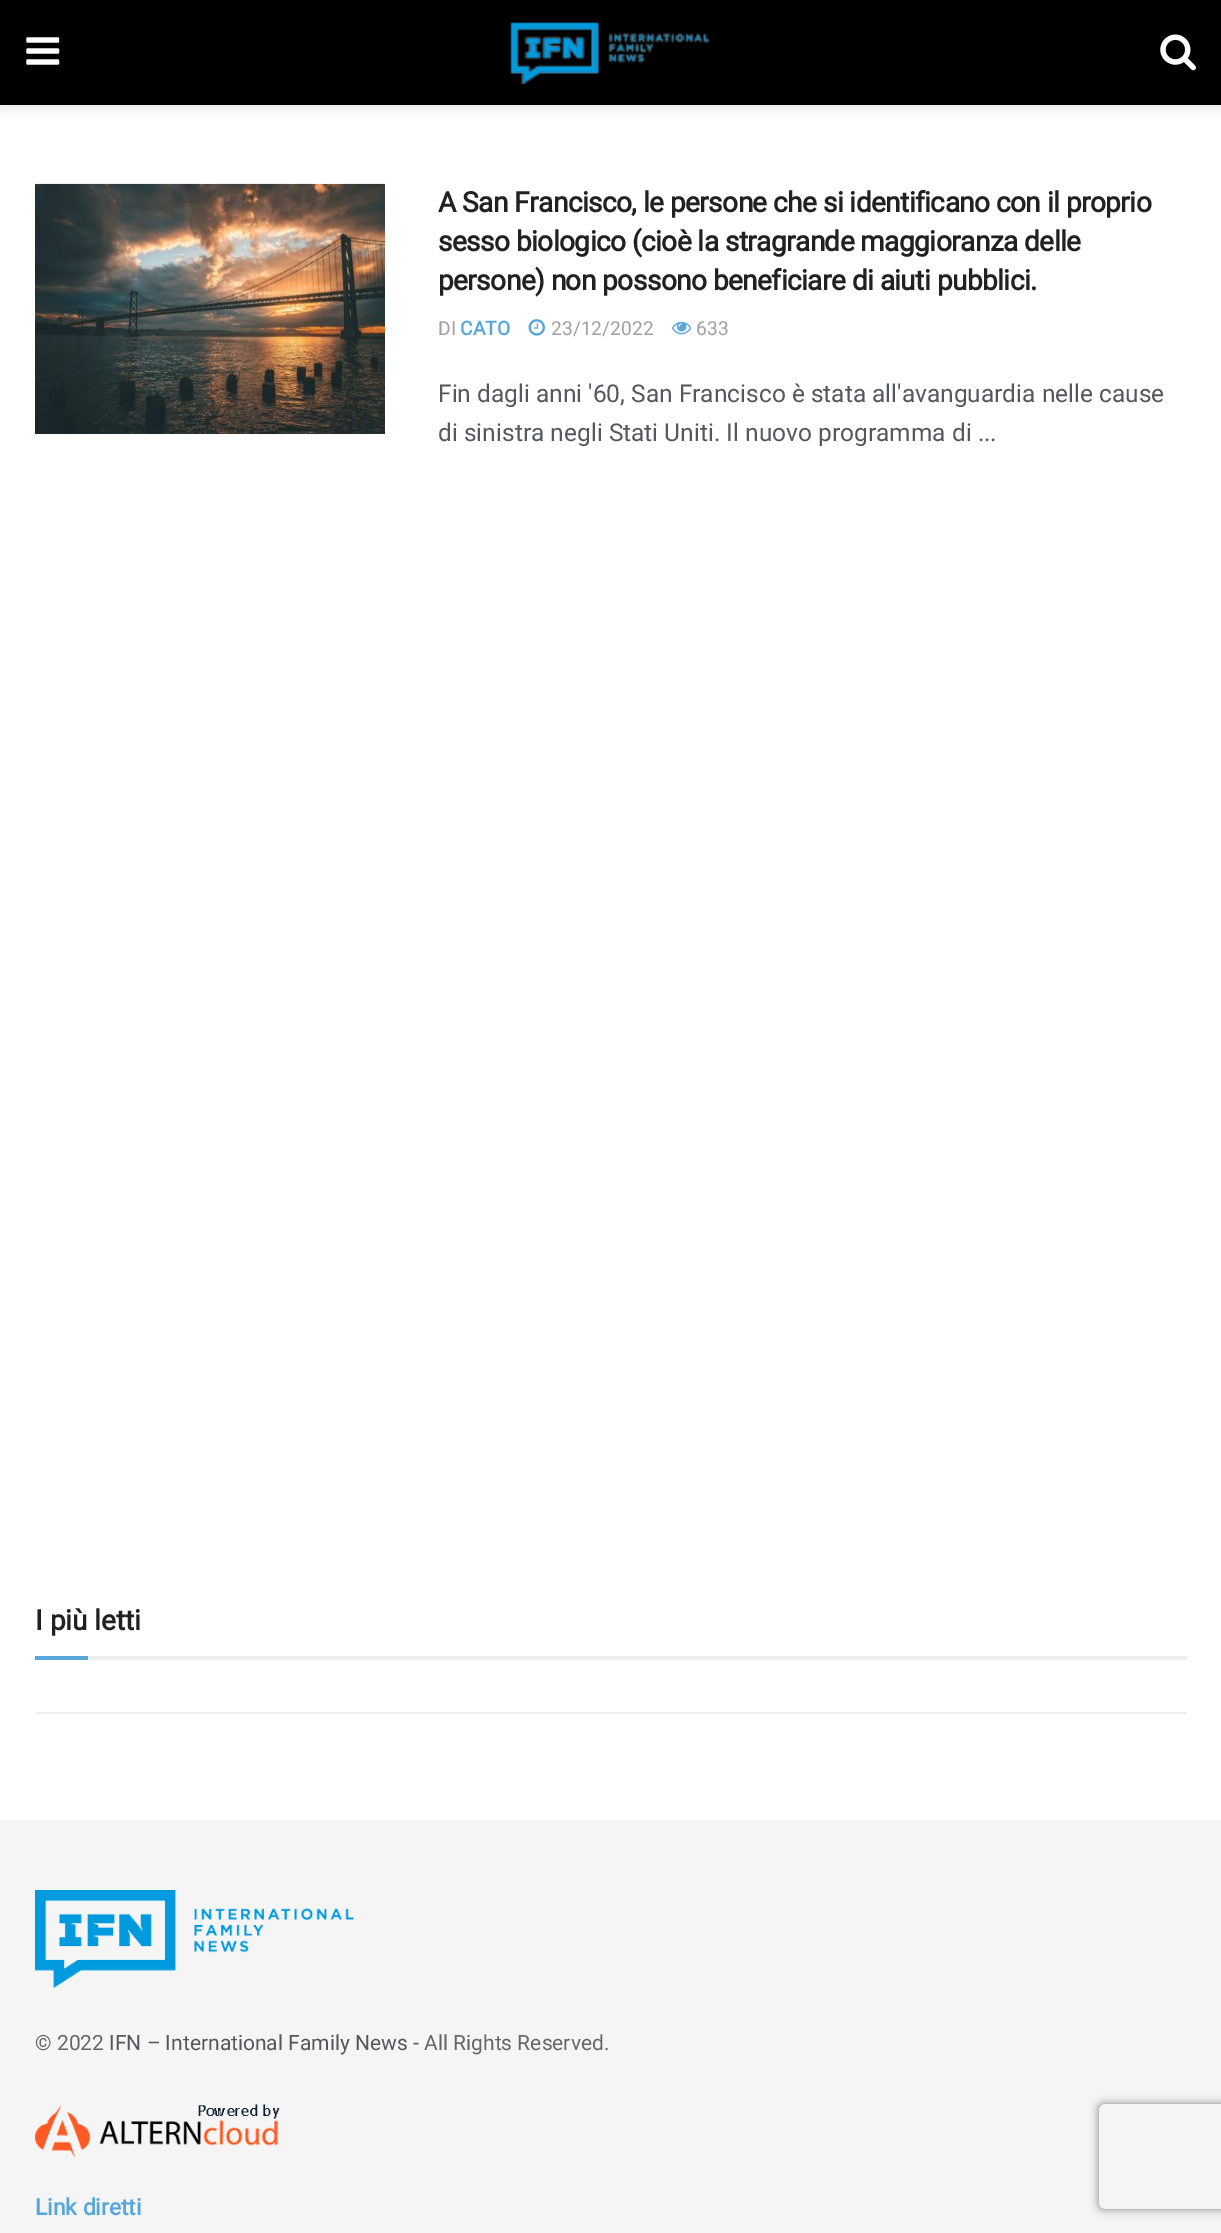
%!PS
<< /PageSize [1221 2233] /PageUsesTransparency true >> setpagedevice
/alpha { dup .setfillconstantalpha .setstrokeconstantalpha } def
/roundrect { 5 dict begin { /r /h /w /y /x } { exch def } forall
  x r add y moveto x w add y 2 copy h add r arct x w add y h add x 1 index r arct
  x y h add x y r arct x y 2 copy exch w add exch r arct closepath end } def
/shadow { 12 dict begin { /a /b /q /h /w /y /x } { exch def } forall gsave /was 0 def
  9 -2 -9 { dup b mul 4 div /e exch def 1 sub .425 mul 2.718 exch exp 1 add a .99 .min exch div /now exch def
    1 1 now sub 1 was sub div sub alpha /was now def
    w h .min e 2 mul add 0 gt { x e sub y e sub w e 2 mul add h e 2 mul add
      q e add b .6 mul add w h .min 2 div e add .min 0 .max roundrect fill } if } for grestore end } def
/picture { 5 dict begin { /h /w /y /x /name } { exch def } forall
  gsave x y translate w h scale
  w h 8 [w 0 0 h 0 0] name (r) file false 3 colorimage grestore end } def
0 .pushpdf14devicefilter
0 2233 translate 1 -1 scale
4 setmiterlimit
1 setgray
0 0 1221 2233 rectfill
0 setgray
0 4 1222 105 0 5 0.1 shadow
0 0 1221 105 rectfill
(img1.rgb) 26 37 34 28 picture
(img2.rgb) 510 22 199 62 picture
(img3.rgb) 1160 34 36 37 picture
(img4.rgb) 35 183 350 251 picture
/Roboto-Bold [28 0 0 -28 0 0] selectfont
0.129 setgray
438 212 moveto -0.55 0 (A San Francisco, le persone che si identificano con il proprio) ashow
438 251 moveto -0.55 0 (sesso biologico \(cioè la stragrande maggioranza delle) ashow
438 290 moveto -0.55 0 (persone\) non possono beneficiare di aiuti pubblici.) ashow
/Roboto-Regular [19.25 0 0 -19.25 0 0] selectfont
0.627 setgray
438 335 moveto (DI) show
/Roboto-Bold [19.25 0 0 -19.25 0 0] selectfont
0.349 0.655 0.855 setrgbcolor
460 335 moveto (CATO) show
(img5.rgb) 528 319 17 17 picture
/Roboto-Regular [19.25 0 0 -19.25 0 0] selectfont
0.627 setgray
551 335 moveto (23/12/2022) show
(img6.rgb) 672 321 20 14 picture
696 335 moveto (633) show
/Roboto-Regular [24.5 0 0 -24.5 0 0] selectfont
0.325 0.345 0.361 setrgbcolor
438 402 moveto (Fin dagli anni '60, San Francisco è stata all'avanguardia nelle cause) show
438 441 moveto (di sinistra negli Stati Uniti. Il nuovo programma di ...) show
0.933 setgray
88 1656 1099 4 rectfill
/Roboto-Bold [28 0 0 -28 0 0] selectfont
0.129 setgray
35 1630 moveto (I più letti) show
0.349 0.655 0.855 setrgbcolor
35 1656 53 4 rectfill
0.933 setgray
35 1712 1152 2 rectfill
0.961 setgray
0 1820 1221 413 rectfill
(img7.rgb) 35 1890 319 98 picture
/Roboto-Regular [21 0 0 -21 0 0] selectfont
0.4 setgray
35 2050 moveto (© 2022) show
0.325 0.345 0.361 setrgbcolor
109 2050 moveto (IFN – International Family News) show
0.4 setgray
413 2050 moveto (- All Rights Reserved.) show
(img8.rgb) 35 2104 245 54 picture
/Roboto-Bold [22.75 0 0 -22.75 0 0] selectfont
0.349 0.655 0.855 setrgbcolor
35 2215 moveto (Link diretti) show
gsave
newpath 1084 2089 moveto 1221 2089 lineto 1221 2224 lineto 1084 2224 lineto closepath 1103 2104 moveto 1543 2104 lineto 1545 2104 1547 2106 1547 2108 curveto 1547 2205 lineto 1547 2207 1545 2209 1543 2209 curveto 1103 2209 lineto 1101 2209 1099 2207 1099 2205 curveto 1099 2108 lineto 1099 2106 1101 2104 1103 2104 curveto closepath eoclip newpath
0.502 setgray
1099 2104 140 105 4 4.5 1 shadow
grestore
.poppdf14devicefilter showpage
